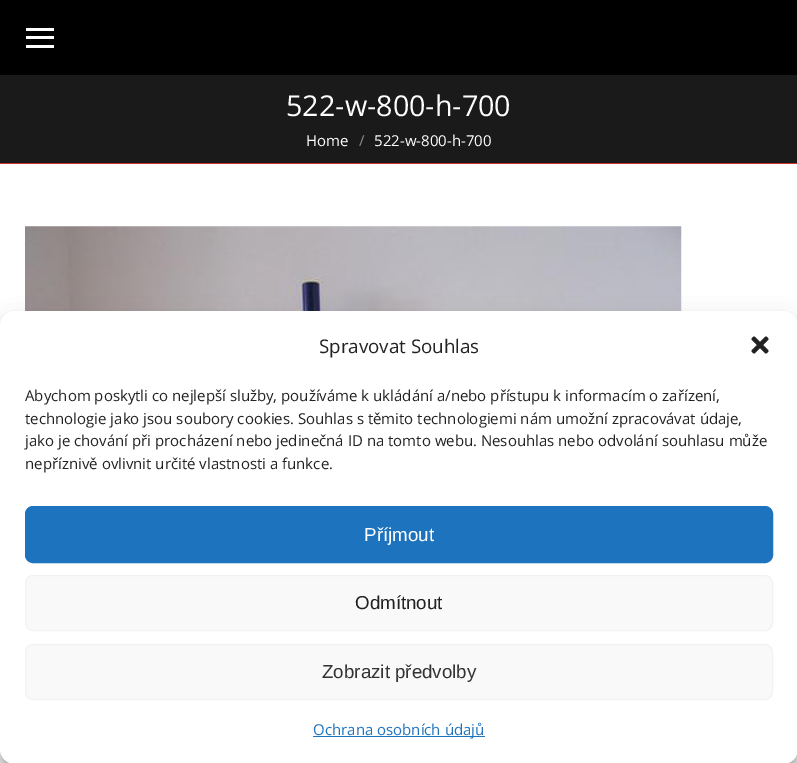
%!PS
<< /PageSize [797 763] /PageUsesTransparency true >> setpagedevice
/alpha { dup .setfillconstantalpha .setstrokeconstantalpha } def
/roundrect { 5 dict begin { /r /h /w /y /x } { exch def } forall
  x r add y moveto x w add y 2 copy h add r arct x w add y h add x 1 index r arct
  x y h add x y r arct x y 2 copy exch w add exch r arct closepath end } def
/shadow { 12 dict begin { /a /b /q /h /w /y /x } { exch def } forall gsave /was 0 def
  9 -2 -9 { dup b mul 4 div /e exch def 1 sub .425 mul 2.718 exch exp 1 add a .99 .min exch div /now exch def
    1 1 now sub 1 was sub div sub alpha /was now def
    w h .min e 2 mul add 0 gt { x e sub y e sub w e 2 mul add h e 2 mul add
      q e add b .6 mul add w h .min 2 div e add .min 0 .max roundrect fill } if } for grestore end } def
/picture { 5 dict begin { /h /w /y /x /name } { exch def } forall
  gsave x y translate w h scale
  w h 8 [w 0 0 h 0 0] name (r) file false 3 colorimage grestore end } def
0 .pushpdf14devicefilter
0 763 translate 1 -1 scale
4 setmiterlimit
1 setgray
0 0 797 763 rectfill
0 setgray
0 0 797 75 rectfill
1 setgray
26 28 28 3 rectfill
26 36 28 3 rectfill
26 45 28 3 rectfill
0.102 setgray
0 75 797 88 rectfill
0.796 0.192 0.192 setrgbcolor
0 163 797 1 rectfill
/OpenSans-Regular [28.75 0 0 -28.75 0 0] selectfont
1 setgray
286 116 moveto (522-w-800-h-700) show
/OpenSans-Regular [15 0 0 -15 0 0] selectfont
306 146 moveto (Home) show
0.553 setgray
359 146 moveto (/) show
1 setgray
374 146 moveto (522-w-800-h-700) show
(img1.rgb) 25 226 657 85 picture
0 setgray
0 319 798 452 15 4 0.23 shadow
0 324 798 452 15 12.5 0.19 shadow
1 setgray
0 311 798 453 15 roundrect fill
/OpenSans-Regular [18.75 0 0 -18.75 0 0] selectfont
0.133 setgray
319 353 moveto (Spravovat Souhlas) show
(img2.rgb) 751 336 18 18 picture
/OpenSans-Regular [15 0 0 -15 0 0] selectfont
25 401 moveto (Abychom poskytli co nejlepší služby, používáme k ukládání a/nebo přístupu k informacím o zařízení,) show
25 424 moveto (technologie jako jsou soubory cookies. Souhlas s těmito technologiemi nám umožní zpracovávat údaje,) show
25 446 moveto (jako je chování při procházení nebo jedinečná ID na tomto webu. Nesouhlas nebo odvolání souhlasu může) show
25 469 moveto (nepříznivě ovlivnit určité vlastnosti a funkce.) show
0.118 0.451 0.745 setrgbcolor
25.5 506.5 747 56 7.5 roundrect gsave fill grestore
stroke
/LiberationSans-Regular [18.75 0 0 -18.75 0 0] selectfont
1 setgray
364 541 moveto (Příjmout) show
0.976 setgray
25.5 575.5 747 55 7.5 roundrect gsave fill grestore
0.949 setgray
stroke
0.133 setgray
355 609 moveto (Odmítnout) show
0.976 setgray
25.5 644.5 747 55 7.5 roundrect gsave fill grestore
0.949 setgray
stroke
0.2 setgray
322 678 moveto (Zobrazit předvolby) show
0.118 0.451 0.745 setrgbcolor
313 736 172 1 rectfill
/OpenSans-Regular [15 0 0 -15 0 0] selectfont
313 735 moveto (Ochrana osobních údajů) show
.poppdf14devicefilter showpage
